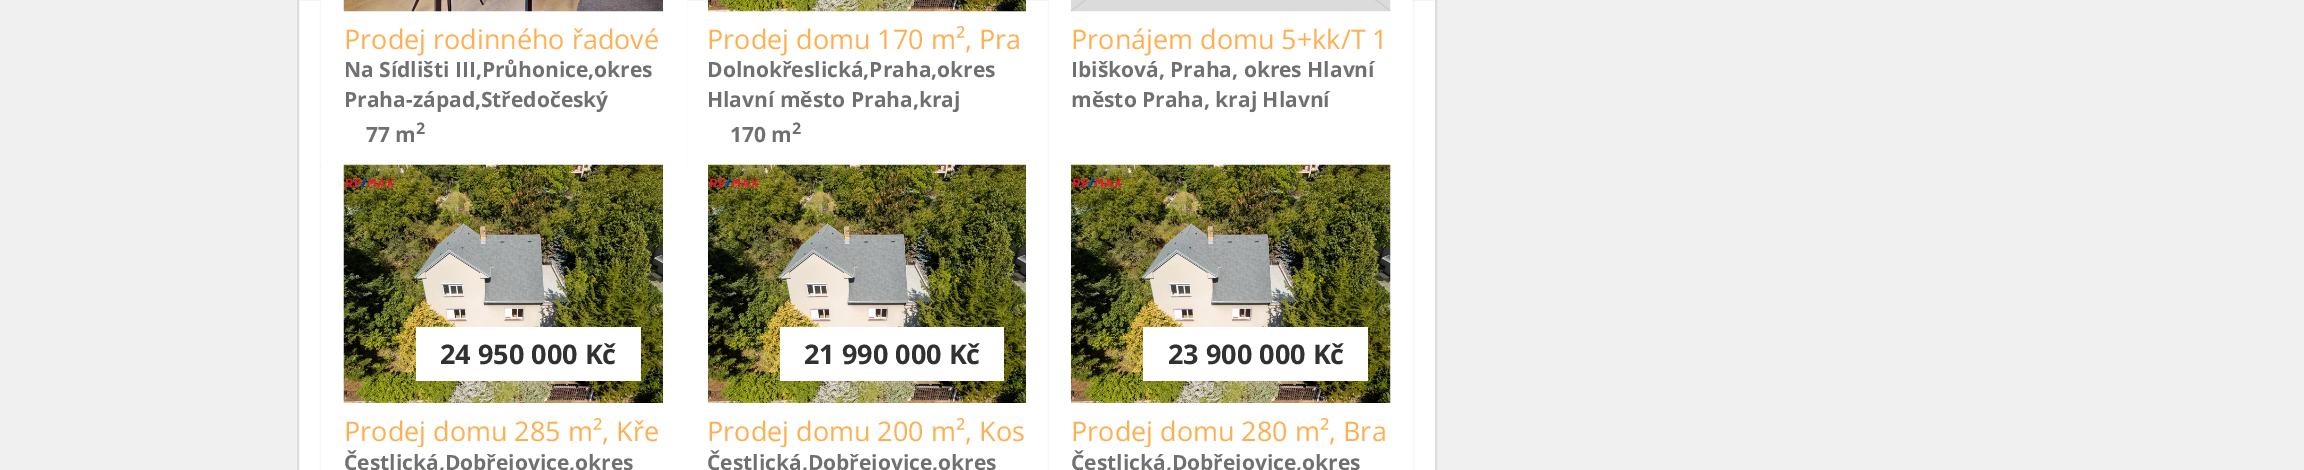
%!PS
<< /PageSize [2304 470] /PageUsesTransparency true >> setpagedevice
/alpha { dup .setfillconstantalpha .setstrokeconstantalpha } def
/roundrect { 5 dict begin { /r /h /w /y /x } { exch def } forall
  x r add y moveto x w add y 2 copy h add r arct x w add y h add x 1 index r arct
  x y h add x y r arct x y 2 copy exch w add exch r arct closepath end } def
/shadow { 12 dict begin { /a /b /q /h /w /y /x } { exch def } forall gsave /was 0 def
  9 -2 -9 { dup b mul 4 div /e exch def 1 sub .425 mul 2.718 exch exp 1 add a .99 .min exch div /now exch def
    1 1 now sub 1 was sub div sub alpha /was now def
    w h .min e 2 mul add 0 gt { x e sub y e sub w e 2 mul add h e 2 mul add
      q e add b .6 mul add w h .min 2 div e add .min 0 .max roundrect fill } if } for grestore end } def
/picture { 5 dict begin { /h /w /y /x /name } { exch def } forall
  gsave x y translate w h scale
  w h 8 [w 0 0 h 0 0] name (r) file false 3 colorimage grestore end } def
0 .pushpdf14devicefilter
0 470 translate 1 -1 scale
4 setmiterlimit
0.941 setgray
0 0 2304 470 rectfill
1 setgray
newpath 298 -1 moveto 1436 -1 lineto 1436 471 lineto 298 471 lineto closepath gsave fill grestore
0.867 setgray
2 setlinewidth
stroke
0 setgray
321 -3 365 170 0 1 0.1 shadow
1 setgray
321 0 366 165 rectfill
(img1.rgb) 343 0 320 12 picture
/OpenSans-Regular [27 0 0 -27 0 0] selectfont
1 0.686 0.314 setrgbcolor
344 49 moveto (Prodej rodinného řadové) show
/OpenSans-Bold [21 0 0 -21 0 0] selectfont
0.439 setgray
344 77 moveto (Na Sídlišti III,Průhonice,okres) show
344 107 moveto (Praha-západ,Středočeský) show
366 142 moveto (77 m) show
/OpenSans-Bold [16 0 0 -16 0 0] selectfont
416 134 moveto (2) show
(img2.rgb) 708 0 318 12 picture
/OpenSans-Regular [27 0 0 -27 0 0] selectfont
1 0.686 0.314 setrgbcolor
707 49 moveto (Prodej domu 170 m², Pra) show
/OpenSans-Bold [21 0 0 -21 0 0] selectfont
0.439 setgray
707 77 moveto (Dolnokřeslická,Praha,okres) show
707 107 moveto (Hlavní město Praha,kraj) show
730 142 moveto (170 m) show
/OpenSans-Bold [16 0 0 -16 0 0] selectfont
792 134 moveto (2) show
0 setgray
1049 -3 364 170 0 1 0.1 shadow
1 setgray
1049 0 364 165 rectfill
(img3.rgb) 1071 0 320 12 picture
/OpenSans-Regular [27 0 0 -27 0 0] selectfont
1 0.686 0.314 setrgbcolor
1071 49 moveto (Pronájem domu 5+kk/T 1) show
/OpenSans-Bold [21 0 0 -21 0 0] selectfont
0.439 setgray
1071 77 moveto (Ibišková, Praha, okres Hlavní) show
1071 107 moveto (město Praha, kraj Hlavní) show
0 setgray
321 167 365 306 0 1 0.1 shadow
1 setgray
321 165 728 305 rectfill
(img4.rgb) 343 164 320 239 picture
416 327 225 54 rectfill
/OpenSans-Bold [27 0 0 -27 0 0] selectfont
0.192 setgray
440 364 moveto (24 950 000 Kč) show
gsave
344 411 319 36 rectclip
/OpenSans-Regular [27 0 0 -27 0 0] selectfont
1 0.686 0.314 setrgbcolor
344 441 moveto (Prodej domu 285 m², Kře) show
grestore
/OpenSans-Bold [21 0 0 -21 0 0] selectfont
0.439 setgray
344 470 moveto (Čestlická,Dobřejovice,okres) show
(img5.rgb) 708 164 318 239 picture
1 setgray
780 327 224 54 rectfill
/OpenSans-Bold [27 0 0 -27 0 0] selectfont
0.192 setgray
804 364 moveto (21 990 000 Kč) show
gsave
708 411 318 36 rectclip
/OpenSans-Regular [27 0 0 -27 0 0] selectfont
1 0.686 0.314 setrgbcolor
707 441 moveto (Prodej domu 200 m², Kos) show
grestore
/OpenSans-Bold [21 0 0 -21 0 0] selectfont
0.439 setgray
707 470 moveto (Čestlická,Dobřejovice,okres) show
0 setgray
1049 167 364 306 0 1 0.1 shadow
1 setgray
1049 165 364 305 rectfill
(img6.rgb) 1071 164 320 239 picture
1143 327 225 54 rectfill
/OpenSans-Bold [27 0 0 -27 0 0] selectfont
0.192 setgray
1168 364 moveto (23 900 000 Kč) show
gsave
1071 411 320 36 rectclip
/OpenSans-Regular [27 0 0 -27 0 0] selectfont
1 0.686 0.314 setrgbcolor
1071 441 moveto (Prodej domu 280 m², Bra) show
grestore
/OpenSans-Bold [21 0 0 -21 0 0] selectfont
0.439 setgray
1071 470 moveto (Čestlická,Dobřejovice,okres) show
.poppdf14devicefilter showpage
